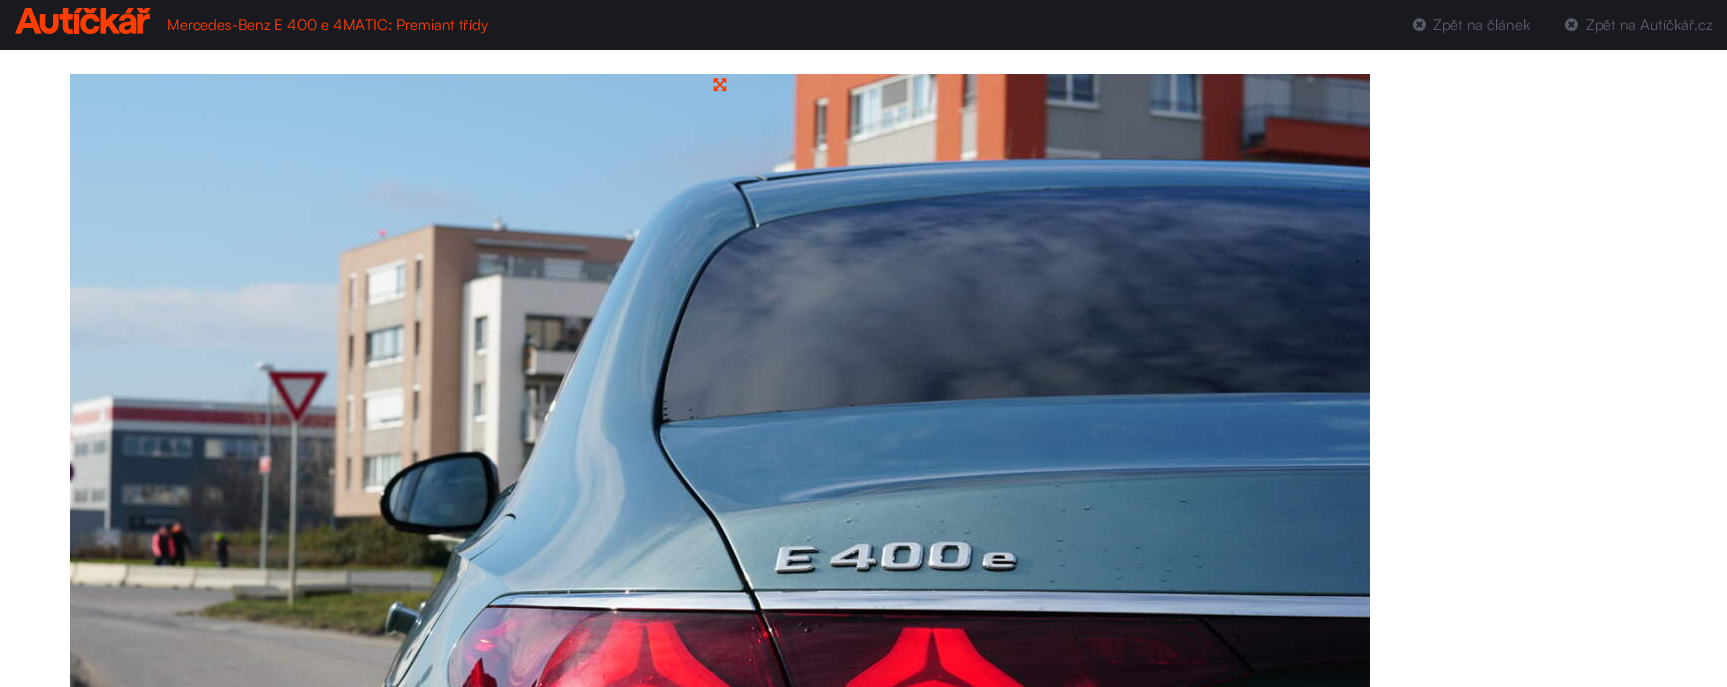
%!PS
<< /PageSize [1727 687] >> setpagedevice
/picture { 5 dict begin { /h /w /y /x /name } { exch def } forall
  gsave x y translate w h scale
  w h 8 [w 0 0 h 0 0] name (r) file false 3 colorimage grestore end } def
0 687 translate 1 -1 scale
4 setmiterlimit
1 setgray
0 0 1727 687 rectfill
0.098 0.102 0.122 setrgbcolor
0 0 1727 50 rectfill
(img1.rgb) 15 8 136 26 picture
/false-Regular [15 0 0 -15 0 0] selectfont
1 0.239 0 setrgbcolor
167 30 moveto (Mercedes-Benz E 400 e 4MATIC: Premiant třídy) show
(img2.rgb) 1413 18 13 13 picture
0.349 0.365 0.412 setrgbcolor
1433 30 moveto (Zpět na článek) show
(img2.rgb) 1565 18 13 13 picture
1586 30 moveto (Zpět na Autíčkář.cz) show
(img3.rgb) 70 74 1300 613 picture
(img4.rgb) 713 78 14 14 picture
showpage
